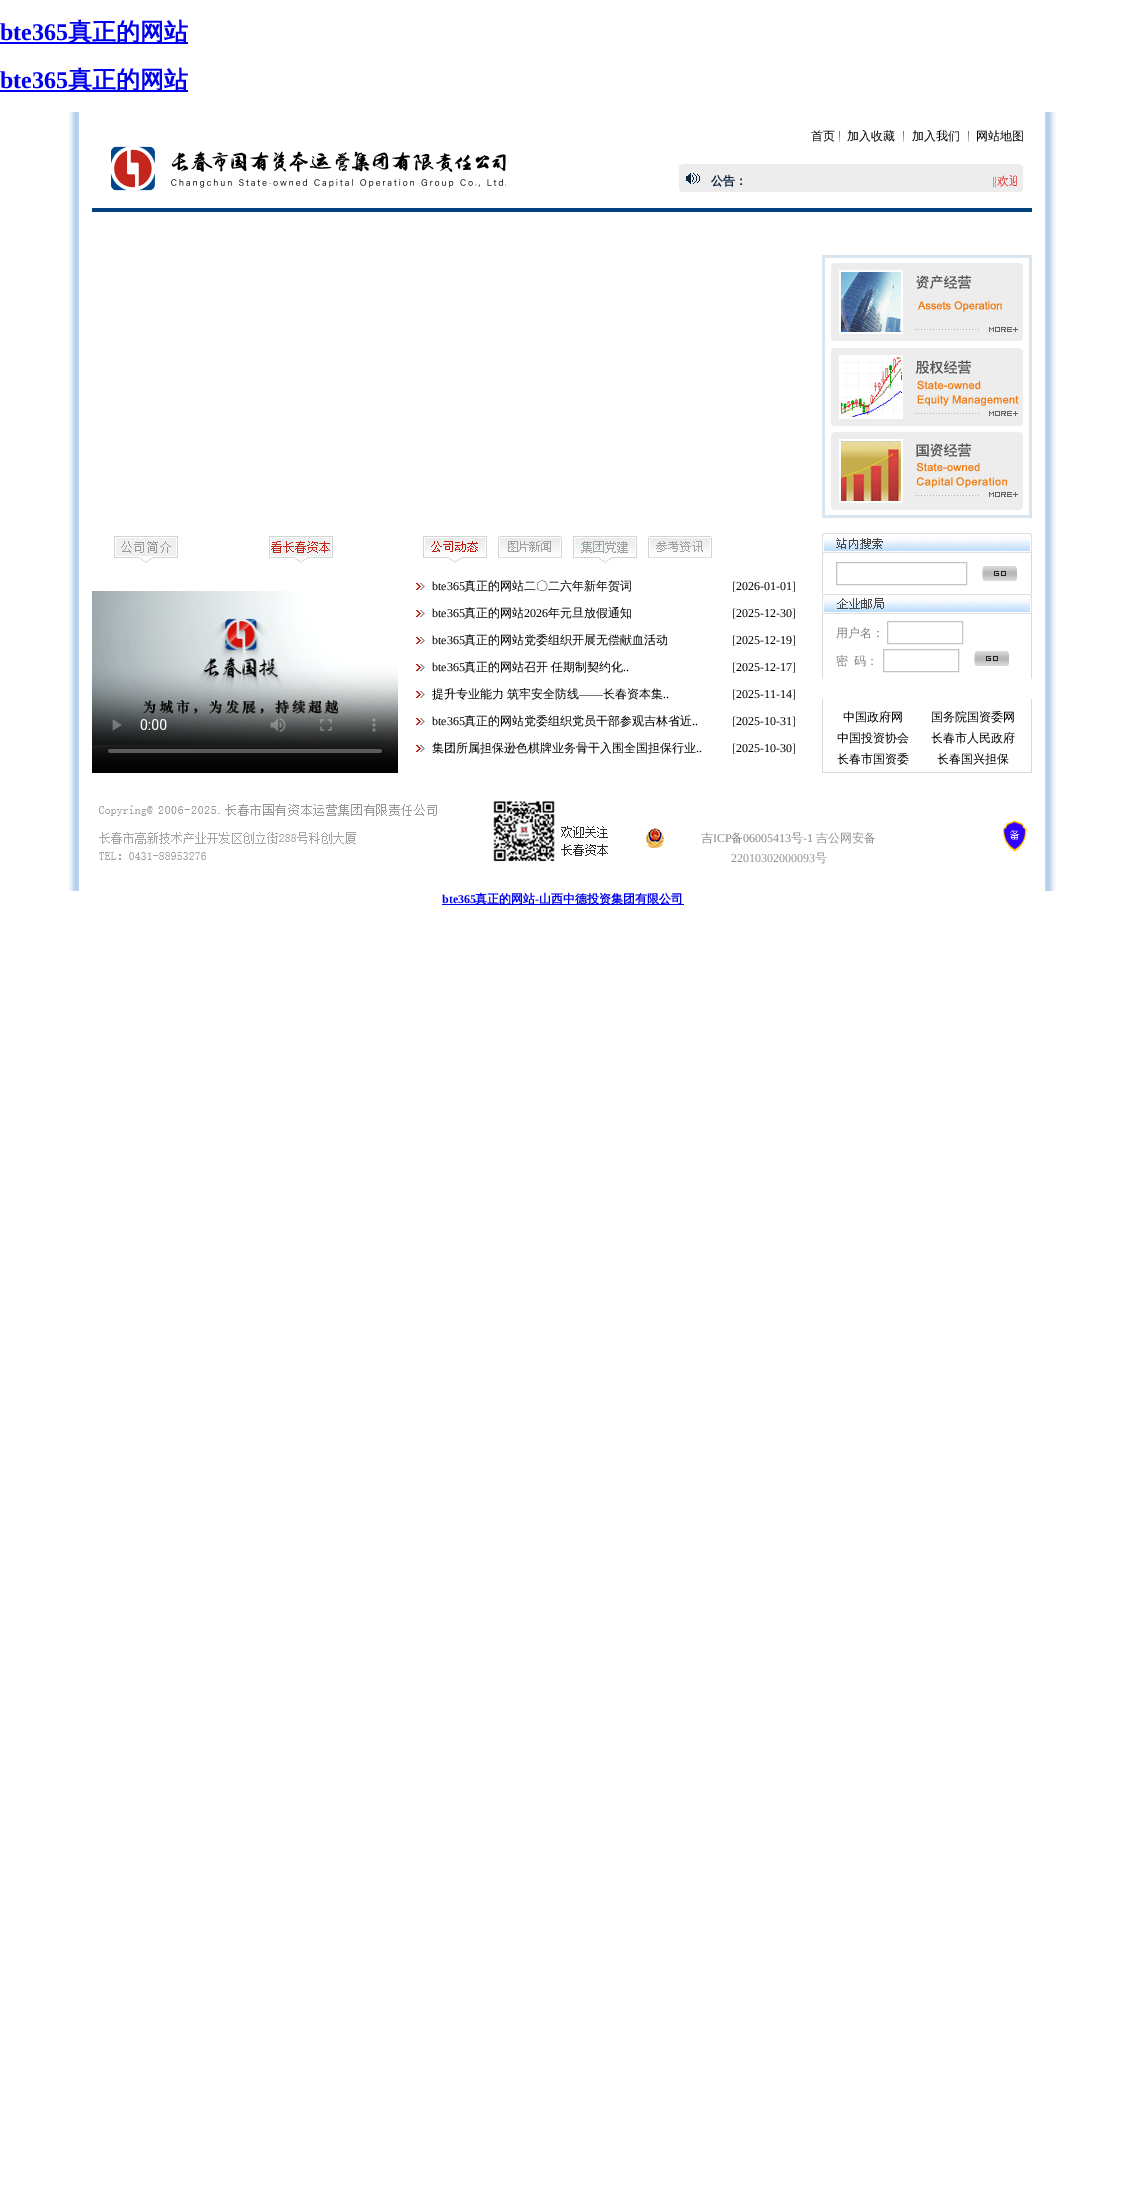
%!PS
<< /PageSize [1125 2211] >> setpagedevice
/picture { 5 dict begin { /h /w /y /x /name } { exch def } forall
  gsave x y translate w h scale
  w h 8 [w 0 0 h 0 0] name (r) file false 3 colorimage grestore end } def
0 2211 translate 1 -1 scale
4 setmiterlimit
1 setgray
0 0 1125 2211 rectfill
/LiberationSerif-Bold [24 0 0 -24 0 0] selectfont
0 0 0.933 setrgbcolor
0 40 moveto (bte365) show
0 42 188 2 rectfill
/WenQuanYiZenHei-Bold [24 0 0 -24 0 0] selectfont
68 40 moveto (真正的网站) show
/LiberationSerif-Bold [24 0 0 -24 0 0] selectfont
0 88 moveto (bte365) show
0 90 188 2 rectfill
/WenQuanYiZenHei-Bold [24 0 0 -24 0 0] selectfont
68 88 moveto (真正的网站) show
(img1.rgb) 68 112 11 96 picture
/WenQuanYiZenHei-Medium [12 0 0 -12 0 0] selectfont
0 setgray
811 140 moveto (首页) show
(img2.rgb) 839 131 1 11 picture
847 140 moveto (加入收藏) show
(img2.rgb) 903 131 1 11 picture
912 140 moveto (加入我们) show
(img2.rgb) 968 131 1 11 picture
976 140 moveto (网站地图) show
(img3.rgb) 111 146 395 45 picture
(img4.rgb) 679 164 344 28 picture
(img5.rgb) 686 173 14 11 picture
/WenQuanYiZenHei-Bold [12 0 0 -12 0 0] selectfont
0.043 0.141 0.227 setrgbcolor
711 185 moveto (公告：) show
/LiberationSerif-Regular [12 0 0 -12 0 0] selectfont
0.898 0.2 0.2 setrgbcolor
992 185 moveto (||) show
gsave
747 173 270 15 rectclip
/WenQuanYiZenHei-Medium [12 0 0 -12 0 0] selectfont
997 185 moveto (欢迎) show
grestore
(img6.rgb) 1045 112 11 96 picture
(img7.rgb) 68 208 11 47 picture
0.004 0.255 0.498 setrgbcolor
92 208 940 4 rectfill
(img8.rgb) 1045 208 11 47 picture
(img9.rgb) 68 255 11 263 picture
0.851 0.902 0.937 setrgbcolor
822 255 210 263 rectfill
1 setgray
825 258 204 257 rectfill
(img10.rgb) 831 263 192 78 picture
(img11.rgb) 831 348 192 78 picture
(img12.rgb) 831 432 192 78 picture
(img13.rgb) 1045 255 11 263 picture
(img14.rgb) 68 518 11 265 picture
(img15.rgb) 114 536 64 27 picture
(img16.rgb) 269 536 64 27 picture
(img17.rgb) 92 591 306 182 picture
(img18.rgb) 423 536 64 27 picture
(img19.rgb) 498 536 64 22 picture
(img20.rgb) 573 536 64 27 picture
(img21.rgb) 648 536 64 22 picture
(img22.rgb) 416 583 9 7 picture
0 setgray
432 590 moveto (bte365) show
/WenQuanYiZenHei-Medium [12 0 0 -12 0 0] selectfont
464 590 moveto (真正的网站二〇二六年新年贺词) show
/LiberationSerif-Regular [12 0 0 -12 0 0] selectfont
732 590 moveto ([2026-01-01]) show
(img22.rgb) 416 610 9 7 picture
432 617 moveto (bte365) show
/WenQuanYiZenHei-Medium [12 0 0 -12 0 0] selectfont
464 617 moveto (真正的网站) show
/LiberationSerif-Regular [12 0 0 -12 0 0] selectfont
524 617 moveto (2026) show
/WenQuanYiZenHei-Medium [12 0 0 -12 0 0] selectfont
548 617 moveto (年元旦放假通知) show
/LiberationSerif-Regular [12 0 0 -12 0 0] selectfont
732 617 moveto ([2025-12-30]) show
(img22.rgb) 416 637 9 7 picture
432 644 moveto (bte365) show
/WenQuanYiZenHei-Medium [12 0 0 -12 0 0] selectfont
464 644 moveto (真正的网站党委组织开展无偿献血活动) show
/LiberationSerif-Regular [12 0 0 -12 0 0] selectfont
732 644 moveto ([2025-12-19]) show
(img22.rgb) 416 664 9 7 picture
432 671 moveto (bte365) show
/WenQuanYiZenHei-Medium [12 0 0 -12 0 0] selectfont
464 671 moveto (真正的网站召开) show
551 671 moveto (任期制契约化) show
/LiberationSerif-Regular [12 0 0 -12 0 0] selectfont
623 671 moveto (..) show
732 671 moveto ([2025-12-17]) show
(img22.rgb) 416 691 9 7 picture
/WenQuanYiZenHei-Medium [12 0 0 -12 0 0] selectfont
432 698 moveto -1 0 32 (提升专业能力 筑牢安全防线) widthshow
/LiberationSerif-Regular [12 0 0 -12 0 0] selectfont
579 698 moveto (——) show
/WenQuanYiZenHei-Medium [12 0 0 -12 0 0] selectfont
603 698 moveto (长春资本集) show
/LiberationSerif-Regular [12 0 0 -12 0 0] selectfont
663 698 moveto (..) show
732 698 moveto ([2025-11-14]) show
(img22.rgb) 416 718 9 7 picture
432 725 moveto (bte365) show
/WenQuanYiZenHei-Medium [12 0 0 -12 0 0] selectfont
464 725 moveto (真正的网站党委组织党员干部参观吉林省近) show
/LiberationSerif-Regular [12 0 0 -12 0 0] selectfont
692 725 moveto (..) show
732 725 moveto ([2025-10-31]) show
(img22.rgb) 416 745 9 7 picture
/WenQuanYiZenHei-Medium [12 0 0 -12 0 0] selectfont
432 752 moveto (集团所属担保逊色棋牌业务骨干入围全国担保行业) show
/LiberationSerif-Regular [12 0 0 -12 0 0] selectfont
696 752 moveto (..) show
732 752 moveto ([2025-10-30]) show
(img23.rgb) 822 533 210 20 picture
0.855 setgray
822 553 1 41 rectfill
0.765 setgray
836.5 562.5 130 22 rectstroke
(img24.rgb) 982 566 35 15 picture
0.855 setgray
1031 553 1 41 rectfill
(img25.rgb) 822 594 210 20 picture
822 614 1 65 rectfill
/WenQuanYiZenHei-Medium [12 0 0 -12 0 0] selectfont
0.502 setgray
836 637 moveto (用户名：) show
0.765 setgray
887.5 621.5 75 22 rectstroke
0.502 setgray
836 665 moveto (密) show
854 665 moveto (码：) show
0.765 setgray
883.5 649.5 75 22 rectstroke
(img24.rgb) 974 651 35 15 picture
0.855 setgray
1031 614 1 65 rectfill
822 699 1 73 rectfill
0 setgray
843 721 moveto (中国政府网) show
931 721 moveto (国务院国资委网) show
837 742 moveto (中国投资协会) show
931 742 moveto (长春市人民政府) show
837 763 moveto (长春市国资委) show
937 763 moveto (长春国兴担保) show
0.855 setgray
1031 699 1 73 rectfill
822 772 210 1 rectfill
(img26.rgb) 1045 518 11 265 picture
(img27.rgb) 68 783 11 108 picture
(img28.rgb) 99 800 509 62 picture
(img29.rgb) 646 828 18 20 picture
0.529 setgray
701 842 moveto (吉) show
/LiberationSerif-Regular [12 0 0 -12 0 0] selectfont
713 842 moveto (ICP) show
/WenQuanYiZenHei-Medium [12 0 0 -12 0 0] selectfont
731 842 moveto (备) show
/LiberationSerif-Regular [12 0 0 -12 0 0] selectfont
743 842 moveto (06005413) show
/WenQuanYiZenHei-Medium [12 0 0 -12 0 0] selectfont
791 842 moveto (号) show
/LiberationSerif-Regular [12 0 0 -12 0 0] selectfont
803 842 moveto (-1) show
/WenQuanYiZenHei-Medium [12 0 0 -12 0 0] selectfont
0.576 setgray
816 842 moveto (吉公网安备) show
/LiberationSerif-Regular [12 0 0 -12 0 0] selectfont
731 862 moveto (22010302000093) show
/WenQuanYiZenHei-Medium [12 0 0 -12 0 0] selectfont
815 862 moveto (号) show
(img30.rgb) 1003 820 24 32 picture
(img31.rgb) 1045 783 11 108 picture
/LiberationSerif-Bold [12 0 0 -12 0 0] selectfont
0 0 0.933 setrgbcolor
442 903 moveto (bte365) show
442 904 242 1 rectfill
/WenQuanYiZenHei-Bold [12 0 0 -12 0 0] selectfont
475 903 moveto (真正的网站) show
/LiberationSerif-Bold [12 0 0 -12 0 0] selectfont
535 903 moveto (-) show
/WenQuanYiZenHei-Bold [12 0 0 -12 0 0] selectfont
539 903 moveto (山西中德投资集团有限公司) show
showpage
